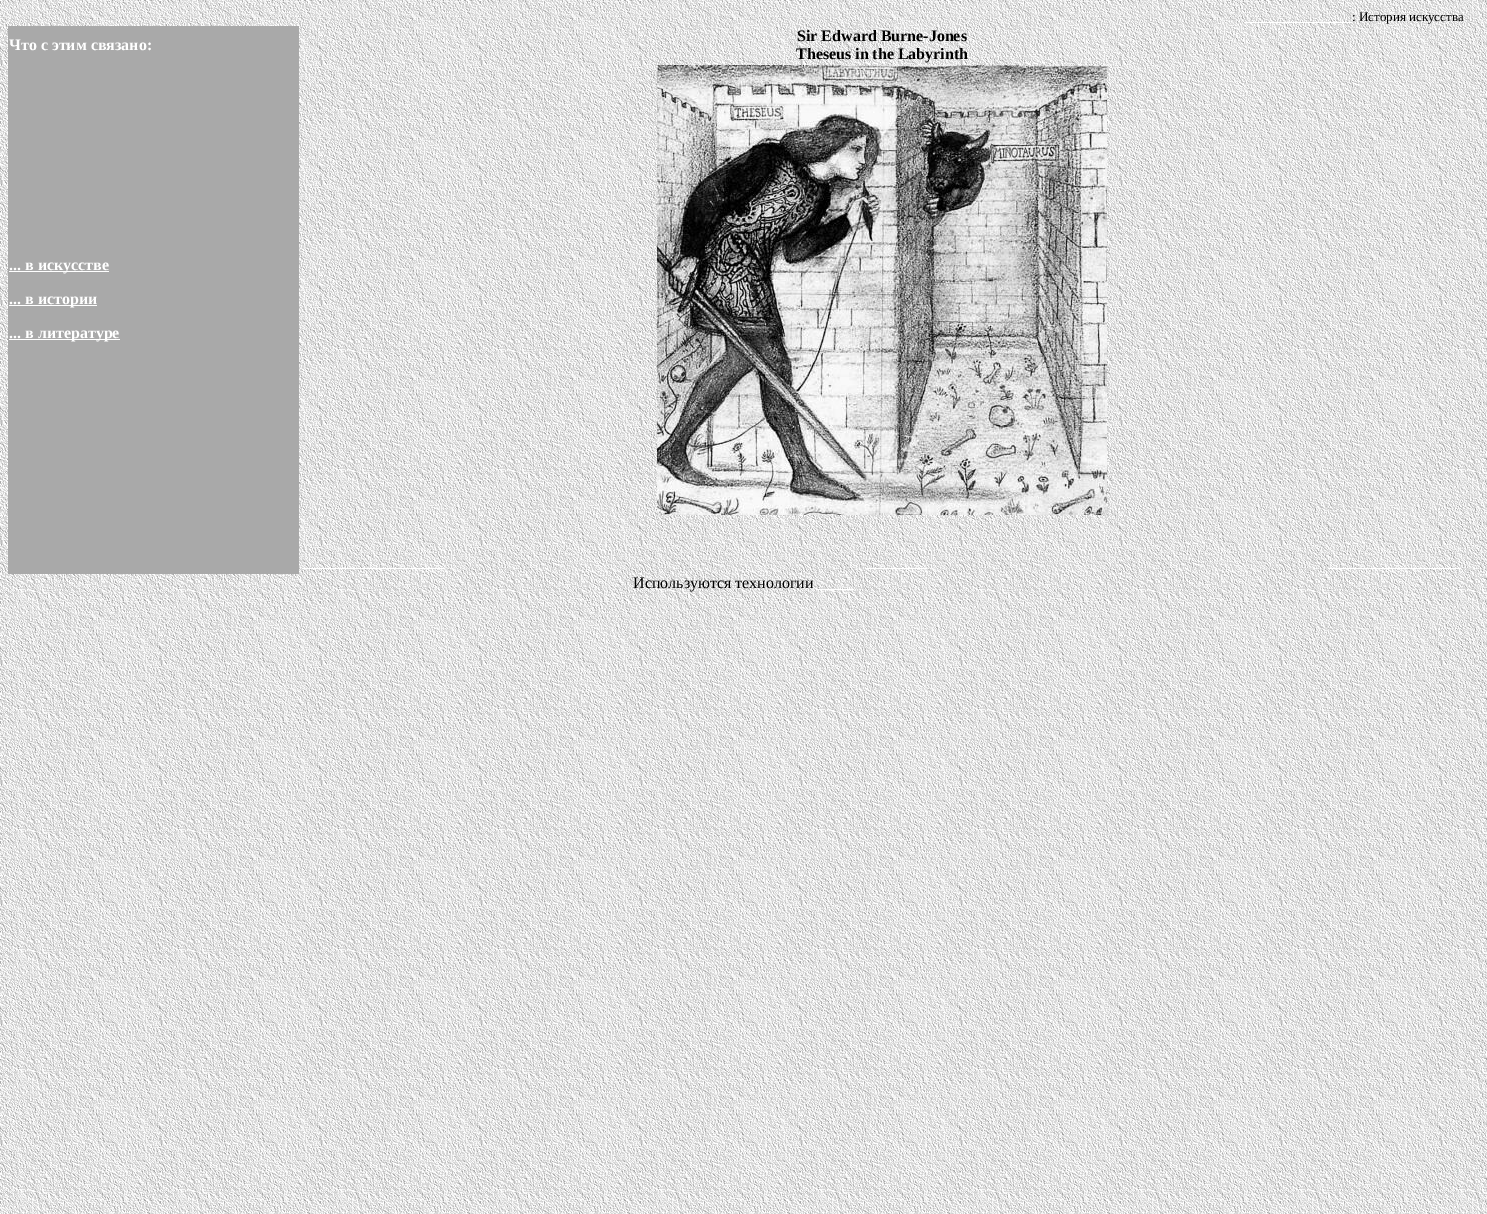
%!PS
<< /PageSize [1487 1214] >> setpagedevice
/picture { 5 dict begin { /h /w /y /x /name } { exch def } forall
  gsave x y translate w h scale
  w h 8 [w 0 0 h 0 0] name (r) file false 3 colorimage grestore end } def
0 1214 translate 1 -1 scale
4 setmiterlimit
1 setgray
0 0 1487 1214 rectfill
(img1.rgb) 0 0 1487 1214 picture
/LiberationSerif-Regular [13 0 0 -13 0 0] selectfont
0 setgray
1352 21 moveto (: История искусства) show
1 setgray
1244 22 108 1 rectfill
0.663 setgray
8 26 291 548 rectfill
/LiberationSerif-Bold [16 0 0 -16 0 0] selectfont
1 setgray
9 50 moveto (Что с этим связано:) show
0 setgray
797 41 moveto (Sir Edward Burne-Jones) show
796 59 moveto (Theseus in the Labyrinth) show
1 setgray
9 271 100 1 rectfill
9 270 moveto (... в искусстве) show
9 305 88 1 rectfill
9 304 moveto (... в истории) show
9 339 111 1 rectfill
9 338 moveto (... в литературе) show
(img2.rgb) 657 65 450 450 picture
302 568 143 1 rectfill
868 568 59 1 rectfill
1328 568 133 1 rectfill
/LiberationSerif-Regular [16 0 0 -16 0 0] selectfont
0 setgray
633 588 moveto (Используются технологии) show
1 setgray
818 589 36 1 rectfill
showpage
